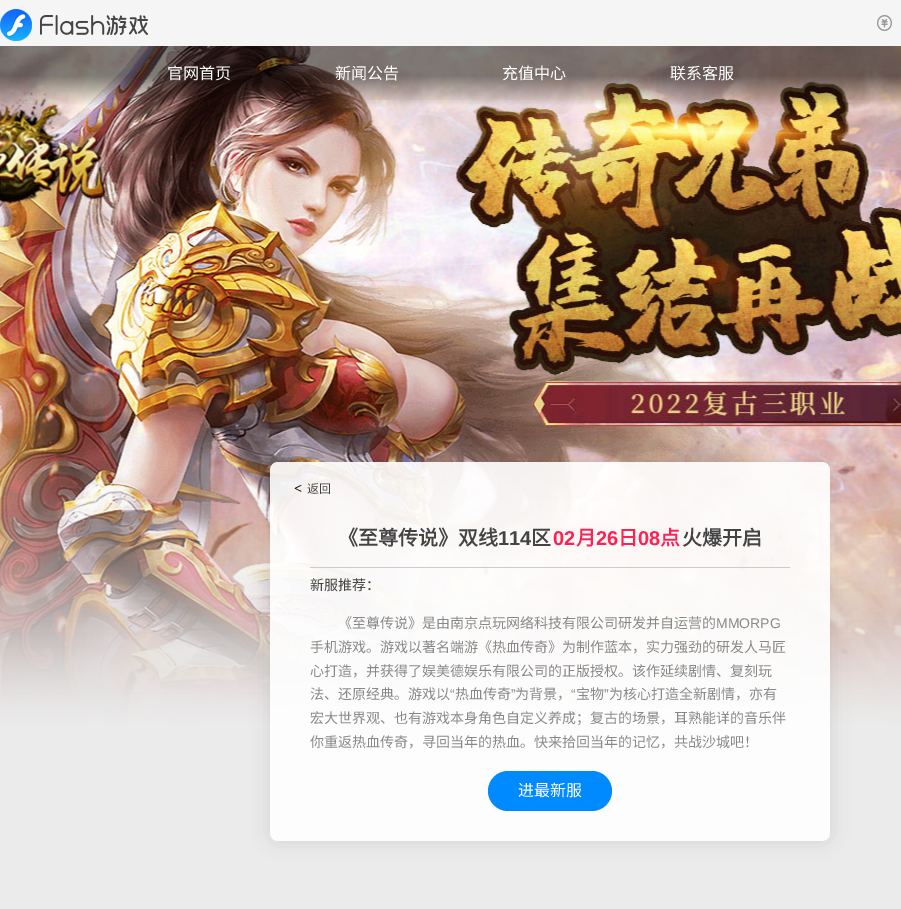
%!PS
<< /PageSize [901 909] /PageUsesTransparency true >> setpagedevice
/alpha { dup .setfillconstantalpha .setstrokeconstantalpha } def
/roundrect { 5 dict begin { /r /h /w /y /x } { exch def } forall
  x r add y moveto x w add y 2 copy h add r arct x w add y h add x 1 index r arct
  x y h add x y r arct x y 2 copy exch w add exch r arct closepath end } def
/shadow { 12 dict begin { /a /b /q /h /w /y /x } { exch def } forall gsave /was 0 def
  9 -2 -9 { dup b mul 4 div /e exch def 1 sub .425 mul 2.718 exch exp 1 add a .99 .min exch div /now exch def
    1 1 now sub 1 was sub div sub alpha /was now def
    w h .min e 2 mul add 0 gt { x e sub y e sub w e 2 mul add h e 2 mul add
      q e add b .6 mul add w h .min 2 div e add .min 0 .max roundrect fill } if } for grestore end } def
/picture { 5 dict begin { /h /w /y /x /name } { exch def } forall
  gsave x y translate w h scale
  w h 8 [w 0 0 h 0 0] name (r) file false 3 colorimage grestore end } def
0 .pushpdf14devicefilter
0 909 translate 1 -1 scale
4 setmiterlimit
0.957 0.961 0.957 setrgbcolor
0 0 901 909 rectfill
(img1.rgb) 0 9 148 32 picture
(img2.rgb) 877 15 15 16 picture
(img3.rgb) 0 46 901 678 picture
/NotoSansCJKSC-Regular [16 0 0 -16 0 0] selectfont
1 setgray
167 79 moveto (官网首页) show
335 79 moveto (新闻公告) show
502 79 moveto (充值中心) show
670 79 moveto (联系客服) show
(img4.rgb) 0 438 901 471 picture
gsave
newpath 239 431 moveto 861 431 lineto 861 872 lineto 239 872 lineto closepath 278 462 moveto 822 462 lineto 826.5 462 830 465.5 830 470 curveto 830 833 lineto 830 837.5 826.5 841 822 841 curveto 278 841 lineto 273.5 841 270 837.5 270 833 curveto 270 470 lineto 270 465.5 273.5 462 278 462 curveto closepath eoclip newpath
0 setgray
270 462 560 379 8 10 0.1 shadow
grestore
0.9 alpha
270 462 560 379 8 roundrect fill
/LiberationSerif-Bold [14 0 0 -14 0 0] selectfont
1 alpha
0 setgray
294 493 moveto (<) show
/NotoSansCJKSC-Regular [12 0 0 -12 0 0] selectfont
0.267 setgray
307 493 moveto (返回) show
/NotoSansCJKSC-Bold [20 0 0 -20 0 0] selectfont
338 545 moveto (《至尊传说》双线) show
/LiberationSans-Bold [20 0 0 -20 0 0] selectfont
498 545 moveto (114) show
/NotoSansCJKSC-Bold [20 0 0 -20 0 0] selectfont
531 545 moveto (区) show
/LiberationSans-Bold [20 0 0 -20 0 0] selectfont
1 0.129 0.329 setrgbcolor
553 545 moveto (02) show
/NotoSansCJKSC-Bold [20 0 0 -20 0 0] selectfont
576 545 moveto (月) show
/LiberationSans-Bold [20 0 0 -20 0 0] selectfont
596 545 moveto (26) show
/NotoSansCJKSC-Bold [20 0 0 -20 0 0] selectfont
618 545 moveto (日) show
/LiberationSans-Bold [20 0 0 -20 0 0] selectfont
638 545 moveto (08) show
/NotoSansCJKSC-Bold [20 0 0 -20 0 0] selectfont
660 545 moveto (点) show
0.267 setgray
682 545 moveto (火爆开启) show
0.8 setgray
310 567 480 1 rectfill
/NotoSansCJKSC-Regular [14 0 0 -14 0 0] selectfont
0.267 setgray
310 590 moveto (新服推荐：) show
0.533 setgray
338 628 moveto (《至尊传说》是由南京点玩网络科技有限公司研发并自运营的) show
/LiberationSans-Regular [14 0 0 -14 0 0] selectfont
716 628 moveto (MMORPG) show
/NotoSansCJKSC-Regular [14 0 0 -14 0 0] selectfont
310 652 moveto (手机游戏。游戏以著名端游《热血传奇》为制作蓝本，实力强劲的研发人马匠) show
310 676 moveto (心打造，并获得了娱美德娱乐有限公司的正版授权。该作延续剧情、复刻玩) show
310 699 moveto (法、还原经典。游戏以) show
/LiberationSans-Regular [14 0 0 -14 0 0] selectfont
450 699 moveto (“) show
/NotoSansCJKSC-Regular [14 0 0 -14 0 0] selectfont
455 699 moveto (热血传奇) show
/LiberationSans-Regular [14 0 0 -14 0 0] selectfont
511 699 moveto (”) show
/NotoSansCJKSC-Regular [14 0 0 -14 0 0] selectfont
515 699 moveto (为背景，) show
/LiberationSans-Regular [14 0 0 -14 0 0] selectfont
571 699 moveto (“) show
/NotoSansCJKSC-Regular [14 0 0 -14 0 0] selectfont
576 699 moveto (宝物) show
/LiberationSans-Regular [14 0 0 -14 0 0] selectfont
604 699 moveto (”) show
/NotoSansCJKSC-Regular [14 0 0 -14 0 0] selectfont
609 699 moveto (为核心打造全新剧情，亦有) show
310 723 moveto (宏大世界观、也有游戏本身角色自定义养成；复古的场景，耳熟能详的音乐伴) show
310 747 moveto (你重返热血传奇，寻回当年的热血。快来拾回当年的记忆，共战沙城吧！) show
0 0.541 1 setrgbcolor
488 771 124 40 20 roundrect fill
/NotoSansCJKSC-Regular [16 0 0 -16 0 0] selectfont
1 setgray
518 796 moveto (进最新服) show
.poppdf14devicefilter showpage
